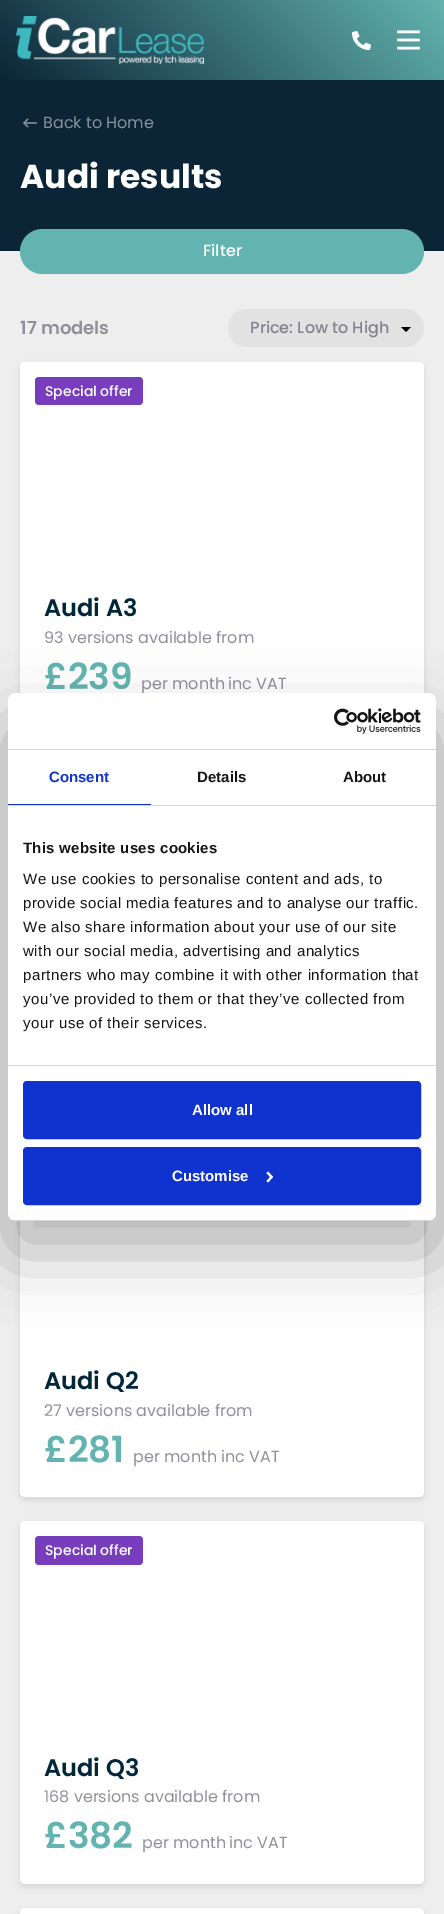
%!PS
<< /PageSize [444 1914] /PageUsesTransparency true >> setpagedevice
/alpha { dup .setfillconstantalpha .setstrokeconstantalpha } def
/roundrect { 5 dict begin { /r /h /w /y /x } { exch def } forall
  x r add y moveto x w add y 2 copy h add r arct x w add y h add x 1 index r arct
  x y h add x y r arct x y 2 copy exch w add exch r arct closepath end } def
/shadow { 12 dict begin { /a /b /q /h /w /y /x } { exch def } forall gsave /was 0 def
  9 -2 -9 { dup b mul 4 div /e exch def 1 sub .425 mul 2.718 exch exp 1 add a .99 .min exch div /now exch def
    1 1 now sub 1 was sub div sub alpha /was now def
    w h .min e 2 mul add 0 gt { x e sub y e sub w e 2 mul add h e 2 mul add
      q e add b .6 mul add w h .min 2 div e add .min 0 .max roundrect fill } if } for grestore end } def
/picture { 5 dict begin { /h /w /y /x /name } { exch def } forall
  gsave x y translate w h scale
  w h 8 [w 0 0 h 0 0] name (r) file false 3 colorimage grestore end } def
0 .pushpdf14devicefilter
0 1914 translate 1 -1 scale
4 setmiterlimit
0.933 setgray
0 0 444 1914 rectfill
gsave newpath 0 0 moveto 444 0 lineto 444 80 lineto 0 80 lineto closepath clip newpath
<< /ShadingType 2 /ColorSpace /DeviceRGB /Coords [91 171 353 -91] /Extend [true true] /Function << /FunctionType 2 /Domain [0 1] /C0 [0.043 0.145 0.216] /C1 [0.388 0.706 0.69] /N 1 >> >> shfill grestore
(img1.rgb) 16 16 188 48 picture
(img2.rgb) 352 31 19 19 picture
(img3.rgb) 397 30 23 20 picture
0.043 0.145 0.216 setrgbcolor
0 80 444 171 rectfill
(img4.rgb) 23 118 14 10 picture
/Poppins-Regular [16 0 0 -16 0 0] selectfont
0.522 0.573 0.608 setrgbcolor
43 128 moveto (Back to Home) show
/Poppins-Bold [33 0 0 -33 0 0] selectfont
1 setgray
20 188 moveto (Audi results) show
0.388 0.706 0.69 setrgbcolor
20 229 404 45 22.5 roundrect fill
/Poppins-Medium [16 0 0 -16 0 0] selectfont
1 setgray
203 256 moveto (Filter) show
/Poppins-SemiBold [18 0 0 -18 0 0] selectfont
0.573 0.561 0.6 setrgbcolor
20 334 moveto (17 models) show
0.886 setgray
228 309 196 38 19 roundrect fill
0 setgray
newpath 401 327 moveto 406 332 lineto 411 327 lineto closepath fill
/Poppins-Medium [16 0 0 -16 0 0] selectfont
0.522 0.51 0.553 setrgbcolor
250 333 moveto (Price: Low to High) show
0 setgray
20 365 404 363 5 3 0.1 shadow
1 setgray
20 362 404 363 5 roundrect fill
0.467 0.239 0.741 setrgbcolor
35 377 108 28 4 roundrect fill
/Poppins-Medium [14 0 0 -14 0 0] selectfont
1 setgray
45 396 moveto (Special offer) show
/Poppins-SemiBold [24 0 0 -24 0 0] selectfont
0 0.149 0.227 setrgbcolor
44 616 moveto (Audi A3) show
/Poppins-Regular [16 0 0 -16 0 0] selectfont
0.573 0.561 0.6 setrgbcolor
44 643 moveto (93 versions available from) show
/Poppins-SemiBold [36 0 0 -36 0 0] selectfont
0.388 0.706 0.69 setrgbcolor
44 689 moveto (£239) show
/Poppins-Regular [16 0 0 -16 0 0] selectfont
0.573 0.561 0.6 setrgbcolor
141 689 moveto (per month) show
228 689 moveto (inc VAT) show
0 setgray
20 1138 404 362 5 3 0.1 shadow
1 setgray
20 1135 404 362 5 roundrect fill
/Poppins-SemiBold [24 0 0 -24 0 0] selectfont
0 0.149 0.227 setrgbcolor
44 1389 moveto (Audi Q2) show
/Poppins-Regular [16 0 0 -16 0 0] selectfont
0.573 0.561 0.6 setrgbcolor
44 1416 moveto (27 versions available from) show
/Poppins-SemiBold [36 0 0 -36 0 0] selectfont
0.388 0.706 0.69 setrgbcolor
44 1462 moveto (£281) show
/Poppins-Regular [16 0 0 -16 0 0] selectfont
0.573 0.561 0.6 setrgbcolor
133 1462 moveto (per month) show
221 1462 moveto (inc VAT) show
0 setgray
20 1524 404 363 5 3 0.1 shadow
1 setgray
20 1521 404 363 5 roundrect fill
0.467 0.239 0.741 setrgbcolor
35 1536 108 29 4 roundrect fill
/Poppins-Medium [14 0 0 -14 0 0] selectfont
1 setgray
45 1555 moveto (Special offer) show
/Poppins-SemiBold [24 0 0 -24 0 0] selectfont
0 0.149 0.227 setrgbcolor
44 1776 moveto (Audi Q3) show
/Poppins-Regular [16 0 0 -16 0 0] selectfont
0.573 0.561 0.6 setrgbcolor
44 1802 moveto (168 versions available from) show
/Poppins-SemiBold [36 0 0 -36 0 0] selectfont
0.388 0.706 0.69 setrgbcolor
44 1848 moveto (£382) show
/Poppins-Regular [16 0 0 -16 0 0] selectfont
0.573 0.561 0.6 setrgbcolor
142 1848 moveto (per month) show
229 1848 moveto (inc VAT) show
0 setgray
20 1911 404 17 5 3 0.1 shadow
1 setgray
20 1908 404 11 5 roundrect fill
0 setgray
8 725 428 528 8 34 0.3 shadow
1 setgray
8 693 428 528 8 roundrect fill
0.839 setgray
8 749 428 1 rectfill
(img5.rgb) 334 708 87 26 picture
8 805 428 1 rectfill
0.063 0.196 0.812 setrgbcolor
8 804 143 1 rectfill
/LiberationSans-Bold [15 0 0 -15 0 0] selectfont
49 782 moveto (Consent) show
0.078 setgray
197 782 moveto (Details) show
343 782 moveto (About) show
0.839 setgray
8 1065 428 1 rectfill
0.078 setgray
23 853 moveto 0.25 0 (This website uses cookies) ashow
/LiberationSans-Regular [15 0 0 -15 0 0] selectfont
23 884 moveto 0.5 0 (We use cookies to personalise content and ads, to) ashow
23 908 moveto 0.5 0 (provide social media features and to analyse our traffic.) ashow
23 932 moveto 0.5 0 (We also share information about your use of our site) ashow
23 956 moveto 0.5 0 (with our social media, advertising and analytics) ashow
23 980 moveto 0.5 0 (partners who may combine it with other information that) ashow
23 1004 moveto 0.5 0 (you’ve provided to them or that they’ve collected from) ashow
23 1028 moveto 0.5 0 (your use of their services.) ashow
gsave
8 693 428 528 8 roundrect clip newpath
0.839 setgray
8 1220 428 1 rectfill
grestore
0.063 0.196 0.812 setrgbcolor
24 1082 396 56 3 roundrect gsave fill grestore
2 setlinewidth
stroke
/LiberationSans-Bold [15 0 0 -15 0 0] selectfont
1 setgray
192 1115 moveto (Allow all) show
0.063 0.196 0.812 setrgbcolor
24 1148 396 56 3 roundrect gsave fill grestore
stroke
1 setgray
172 1181 moveto (Customise) show
newpath 268 1171.5 moveto 273 1177 lineto 271.5 1178.5 lineto 266.5 1173 lineto closepath fill
newpath 271.5 1175.5 moveto 273 1177 lineto 268 1182.5 lineto 266.5 1181 lineto closepath fill
.poppdf14devicefilter showpage
